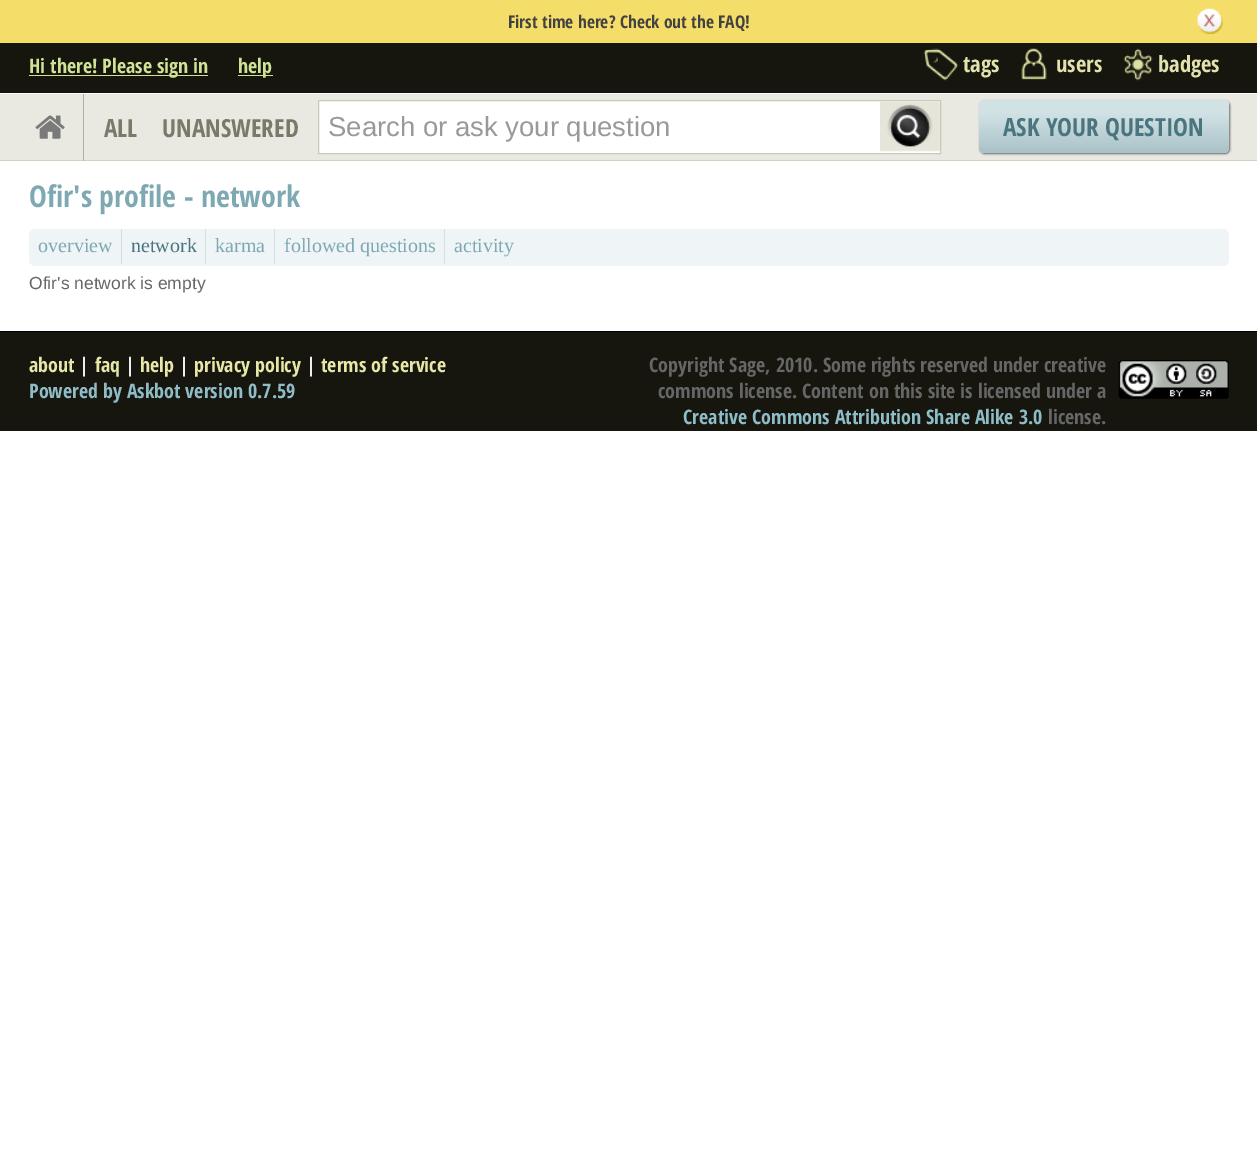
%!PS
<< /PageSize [1257 1166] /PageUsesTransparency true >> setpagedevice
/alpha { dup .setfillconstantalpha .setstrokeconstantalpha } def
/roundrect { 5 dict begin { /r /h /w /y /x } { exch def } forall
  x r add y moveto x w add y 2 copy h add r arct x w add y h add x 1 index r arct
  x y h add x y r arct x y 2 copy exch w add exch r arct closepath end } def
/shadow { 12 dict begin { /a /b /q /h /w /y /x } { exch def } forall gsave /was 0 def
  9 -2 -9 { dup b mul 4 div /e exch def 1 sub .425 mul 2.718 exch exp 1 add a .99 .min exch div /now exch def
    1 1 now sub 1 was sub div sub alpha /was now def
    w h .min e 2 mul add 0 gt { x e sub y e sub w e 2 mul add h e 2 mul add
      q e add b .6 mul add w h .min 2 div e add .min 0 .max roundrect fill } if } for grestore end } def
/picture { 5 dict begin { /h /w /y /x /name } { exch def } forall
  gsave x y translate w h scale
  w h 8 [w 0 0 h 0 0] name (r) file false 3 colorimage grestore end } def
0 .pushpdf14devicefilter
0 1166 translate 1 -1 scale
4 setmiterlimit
1 setgray
0 0 1257 1166 rectfill
0.961 0.867 0.412 setrgbcolor
0 0 1257 43 rectfill
/OpenSansCondensed-Bold [17.5 0 0 -17.5 0 0] selectfont
0.259 setgray
508 28 moveto (First time here? Check out the FAQ!) show
(img1.rgb) 1197 8 26 26 picture
0.086 0.086 0.059 setrgbcolor
0 43 1257 50 rectfill
0.816 0.886 0.588 setrgbcolor
29 75 179 1 rectfill
/OpenSansCondensed-Bold [20 0 0 -20 0 0] selectfont
29 73 moveto (Hi there! Please sign in) show
238 75 35 1 rectfill
238 73 moveto (help) show
(img2.rgb) 923 48 36 33 picture
/OpenSansCondensed-Bold [22.5 0 0 -22.5 0 0] selectfont
0.886 0.886 0.682 setrgbcolor
963 72 moveto (tags) show
(img3.rgb) 1021 48 26 32 picture
1056 72 moveto (users) show
(img4.rgb) 1123 48 30 33 picture
1158 72 moveto (badges) show
0.914 0.914 0.882 setrgbcolor
0 94 1257 66 rectfill
0.988 setgray
0 93 1257 1 rectfill
0.827 0.827 0.761 setrgbcolor
0 160 1257 1 rectfill
0.686 0.686 0.62 setrgbcolor
83 94 1 67 rectfill
(img5.rgb) 35 115 30 24 picture
/OpenSansCondensed-Bold [25 0 0 -25 0 0] selectfont
0.478 0.478 0.42 setrgbcolor
104 137 moveto (ALL) show
162 137 moveto (UNANSWERED) show
1 setgray
newpath 318.5 100.5 moveto 940.5 100.5 lineto 940.5 153.5 lineto 318.5 153.5 lineto closepath gsave fill grestore
0.788 0.788 0.71 setrgbcolor
stroke
/LiberationSans-Regular [27.5 0 0 -27.5 0 0] selectfont
0.6 setgray
328 136 moveto (Search or ask your question) show
(img6.rgb) 880 101 60 51 picture
0.388 setgray
980 101 250 53 5 1 1 shadow
gsave 979 100 250 53 5 roundrect clip newpath
<< /ShadingType 2 /ColorSpace /DeviceRGB /Coords [1104 100 1104 153] /Extend [true true] /Function << /FunctionType 3 /Domain [0 1] /Functions [<< /FunctionType 2 /Domain [0 1] /C0 [0.82 0.886 0.898] /C1 [0.82 0.886 0.898] /N 1 >> << /FunctionType 2 /Domain [0 1] /C0 [0.82 0.886 0.898] /C1 [0.663 0.761 0.78] /N 1 >>] /Bounds [0.25] /Encode [0 1 0 1] >> >> shfill grestore
/OpenSansCondensed-Bold [25 0 0 -25 0 0] selectfont
0.29 0.459 0.498 setrgbcolor
1003 136 moveto (ASK YOUR QUESTION) show
/OpenSansCondensed-Bold [30 0 0 -30 0 0] selectfont
0.494 0.663 0.702 setrgbcolor
29 207 moveto (Ofir's profile - network) show
0.937 0.961 0.965 setrgbcolor
29 229 1200 37 6 roundrect fill
/LiberationSerif-Regular [20 0 0 -20 0 0] selectfont
0.494 0.663 0.702 setrgbcolor
38 252 moveto (overview) show
0.816 0.882 0.894 setrgbcolor
121 229 1 35 rectfill
0.29 0.459 0.498 setrgbcolor
131 252 moveto (network) show
0.816 0.882 0.894 setrgbcolor
205 229 1 35 rectfill
0.494 0.663 0.702 setrgbcolor
215 252 moveto (karma) show
0.816 0.882 0.894 setrgbcolor
274 229 1 35 rectfill
0.494 0.663 0.702 setrgbcolor
284 252 moveto (followed questions) show
0.816 0.882 0.894 setrgbcolor
444 229 1 35 rectfill
0.494 0.663 0.702 setrgbcolor
454 252 moveto (activity) show
/LiberationSans-Regular [17.5 0 0 -17.5 0 0] selectfont
0.4 setgray
29 289 moveto (Ofir's network is empty) show
0.086 0.086 0.059 setrgbcolor
0 332 1257 99 rectfill
0 setgray
0 331 1257 1 rectfill
/OpenSansCondensed-Bold [20 0 0 -20 0 0] selectfont
0.906 0.91 0.659 setrgbcolor
29 372 moveto (about) show
0.933 setgray
79 372 moveto (|) show
0.906 0.91 0.659 setrgbcolor
95 372 moveto (faq) show
0.933 setgray
125 372 moveto (|) show
0.906 0.91 0.659 setrgbcolor
140 372 moveto (help) show
0.933 setgray
179 372 moveto (|) show
0.906 0.91 0.659 setrgbcolor
194 372 moveto (privacy policy) show
0.933 setgray
306 372 moveto (|) show
0.906 0.91 0.659 setrgbcolor
321 372 moveto (terms of service) show
0.4 setgray
649 372 moveto (Copyright Sage, 2010. Some rights reserved under creative) show
(img7.rgb) 1118 360 111 39 picture
658 398 moveto (commons license. Content on this site is licensed under a) show
0.557 0.737 0.78 setrgbcolor
683 424 moveto (Creative Commons Attribution Share Alike 3.0) show
0.4 setgray
1048 424 moveto (license.) show
0.557 0.737 0.78 setrgbcolor
29 398 moveto (Powered by Askbot version 0.7.59) show
.poppdf14devicefilter showpage
